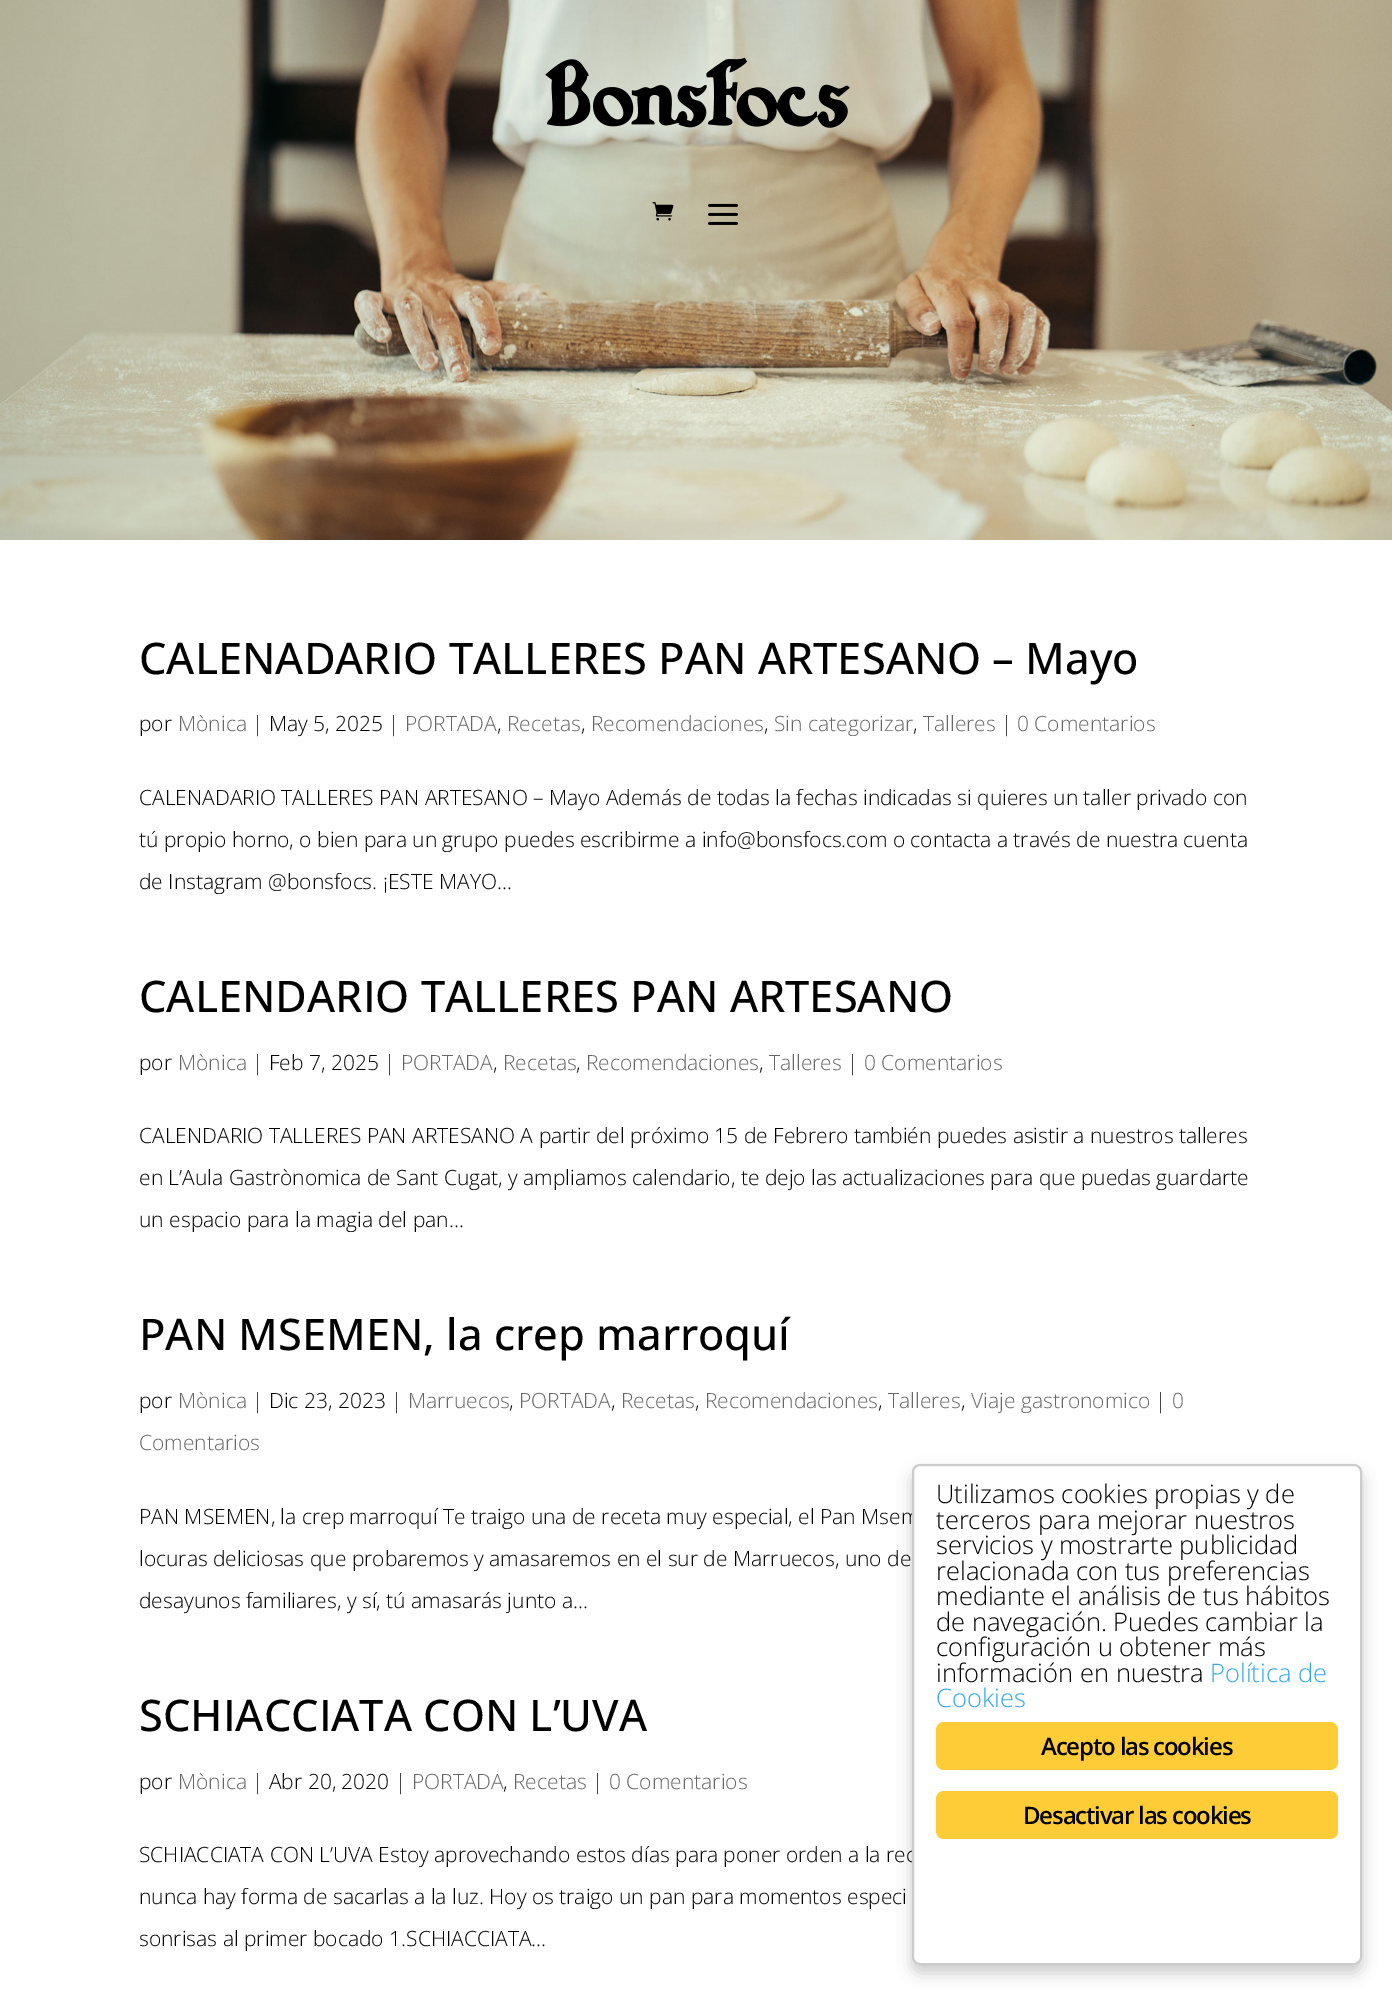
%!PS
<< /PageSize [1392 1995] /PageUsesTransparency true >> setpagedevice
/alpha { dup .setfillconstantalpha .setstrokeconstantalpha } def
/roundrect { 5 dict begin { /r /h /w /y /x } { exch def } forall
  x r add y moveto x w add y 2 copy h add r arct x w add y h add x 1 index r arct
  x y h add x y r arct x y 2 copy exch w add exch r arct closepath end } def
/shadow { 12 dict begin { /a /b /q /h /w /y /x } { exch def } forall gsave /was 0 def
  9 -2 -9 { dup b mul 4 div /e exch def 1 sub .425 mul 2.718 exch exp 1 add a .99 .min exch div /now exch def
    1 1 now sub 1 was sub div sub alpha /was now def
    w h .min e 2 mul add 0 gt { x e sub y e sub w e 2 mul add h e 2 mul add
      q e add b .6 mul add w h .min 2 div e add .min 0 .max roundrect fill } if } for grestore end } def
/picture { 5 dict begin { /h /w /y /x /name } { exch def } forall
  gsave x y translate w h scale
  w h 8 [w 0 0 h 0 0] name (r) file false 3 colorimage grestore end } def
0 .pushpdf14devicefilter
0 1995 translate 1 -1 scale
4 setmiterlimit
1 setgray
0 0 1392 1995 rectfill
(img1.rgb) 0 0 1392 540 picture
(img2.rgb) 545 57 305 71 picture
(img3.rgb) 652 202 22 19 picture
(img4.rgb) 708 203 30 22 picture
/OpenSans-Medium [43.5 0 0 -43.5 0 0] selectfont
0 setgray
139 674 moveto (CALENADARIO TALLERES PAN ARTESANO – Mayo) show
/OpenSans-Light [21 0 0 -21 0 0] selectfont
139 731 moveto (por) show
0.4 setgray
178 731 moveto (Mònica) show
0 setgray
252 731 moveto (| May 5, 2025 |) show
0.4 setgray
405 731 moveto (PORTADA) show
0 setgray
497 731 moveto (,) show
0.4 setgray
507 731 moveto (Recetas) show
0 setgray
581 731 moveto (,) show
0.4 setgray
591 731 moveto (Recomendaciones) show
0 setgray
764 731 moveto (,) show
0.4 setgray
774 731 moveto (Sin categorizar) show
0 setgray
913 731 moveto (,) show
0.4 setgray
923 731 moveto (Talleres) show
0 setgray
1001 731 moveto (|) show
0.4 setgray
1017 731 moveto (0 Comentarios) show
0 setgray
139 805 moveto (CALENADARIO TALLERES PAN ARTESANO – Mayo Además de todas la fechas indicadas si quieres un taller privado con) show
139 847 moveto (tú propio horno, o bien para un grupo puedes escribirme a info@bonsfocs.com o contacta a través de nuestra cuenta) show
139 889 moveto (de Instagram @bonsfocs. ¡ESTE MAYO...) show
/OpenSans-Medium [43.5 0 0 -43.5 0 0] selectfont
139 1012 moveto (CALENDARIO TALLERES PAN ARTESANO) show
/OpenSans-Light [21 0 0 -21 0 0] selectfont
139 1070 moveto (por) show
0.4 setgray
178 1070 moveto (Mònica) show
0 setgray
252 1070 moveto (| Feb 7, 2025 |) show
0.4 setgray
401 1070 moveto (PORTADA) show
0 setgray
493 1070 moveto (,) show
0.4 setgray
503 1070 moveto (Recetas) show
0 setgray
576 1070 moveto (,) show
0.4 setgray
586 1070 moveto (Recomendaciones) show
0 setgray
759 1070 moveto (,) show
0.4 setgray
769 1070 moveto (Talleres) show
0 setgray
847 1070 moveto (|) show
0.4 setgray
864 1070 moveto (0 Comentarios) show
0 setgray
139 1143 moveto (CALENDARIO TALLERES PAN ARTESANO A partir del próximo 15 de Febrero también puedes asistir a nuestros talleres) show
139 1185 moveto (en L’Aula Gastrònomica de Sant Cugat, y ampliamos calendario, te dejo las actualizaciones para que puedas guardarte) show
139 1227 moveto (un espacio para la magia del pan...) show
/OpenSans-Medium [43.5 0 0 -43.5 0 0] selectfont
139 1350 moveto (PAN MSEMEN, la crep marroquí) show
/OpenSans-Light [21 0 0 -21 0 0] selectfont
139 1408 moveto (por) show
0.4 setgray
178 1408 moveto (Mònica) show
0 setgray
252 1408 moveto (| Dic 23, 2023 |) show
0.4 setgray
408 1408 moveto (Marruecos) show
0 setgray
509 1408 moveto (,) show
0.4 setgray
519 1408 moveto (PORTADA) show
0 setgray
611 1408 moveto (,) show
0.4 setgray
621 1408 moveto (Recetas) show
0 setgray
695 1408 moveto (,) show
0.4 setgray
705 1408 moveto (Recomendaciones) show
0 setgray
878 1408 moveto (,) show
0.4 setgray
888 1408 moveto (Talleres) show
0 setgray
961 1408 moveto (,) show
0.4 setgray
971 1408 moveto (Viaje gastronomico) show
0 setgray
1155 1408 moveto (|) show
0.4 setgray
1172 1408 moveto (0) show
139 1450 moveto (Comentarios) show
0 setgray
139 1524 moveto (PAN MSEMEN, la crep marroquí Te traigo una de receta muy especial, el Pan Msem) show
139 1566 moveto (locuras deliciosas que probaremos y amasaremos en el sur de Marruecos, uno de) show
139 1608 moveto (desayunos familiares, y sí, tú amasarás junto a...) show
/OpenSans-Medium [43.5 0 0 -43.5 0 0] selectfont
139 1731 moveto (SCHIACCIATA CON L’UVA) show
/OpenSans-Light [21 0 0 -21 0 0] selectfont
139 1789 moveto (por) show
0.4 setgray
178 1789 moveto (Mònica) show
0 setgray
252 1789 moveto (| Abr 20, 2020 |) show
0.4 setgray
412 1789 moveto (PORTADA) show
0 setgray
503 1789 moveto (,) show
0.4 setgray
513 1789 moveto (Recetas) show
0 setgray
592 1789 moveto (|) show
0.4 setgray
609 1789 moveto (0 Comentarios) show
0 setgray
139 1862 moveto (SCHIACCIATA CON L’UVA Estoy aprovechando estos días para poner orden a la rec) show
139 1904 moveto (nunca hay forma de sacarlas a la luz. Hoy os traigo un pan para momentos especi) show
139 1946 moveto (sonrisas al primer bocado 1.SCHIACCIATA...) show
912 1472 450 501 8 7.5 0.2 shadow
1 setgray
913 1465 448 499 7 roundrect gsave fill grestore
0.8 setgray
2 setlinewidth
stroke
/OpenSans-Light [25.5 0 0 -25.5 0 0] selectfont
0 setgray
936 1503 moveto (Utilizamos cookies propias y de) show
936 1529 moveto (terceros para mejorar nuestros) show
936 1554 moveto (servicios y mostrarte publicidad) show
936 1580 moveto (relacionada con tus preferencias) show
936 1605 moveto (mediante el análisis de tus hábitos) show
936 1631 moveto (de navegación. Puedes cambiar la) show
936 1656 moveto (configuración u obtener más) show
936 1682 moveto (información en nuestra) show
0.192 0.659 0.941 setrgbcolor
1210 1682 moveto (Política de) show
936 1707 moveto (Cookies) show
0.996 0.8 0.216 setrgbcolor
936 1722 402 48 8 roundrect fill
/OpenSans-SemiBold [24 0 0 -24 0 0] selectfont
0 setgray
1041 1755 moveto -1.2 0 (Acepto las cookies) ashow
0.996 0.8 0.216 setrgbcolor
936 1791 402 48 8 roundrect fill
0 setgray
1023 1824 moveto -1.2 0 (Desactivar las cookies) ashow
.poppdf14devicefilter showpage
